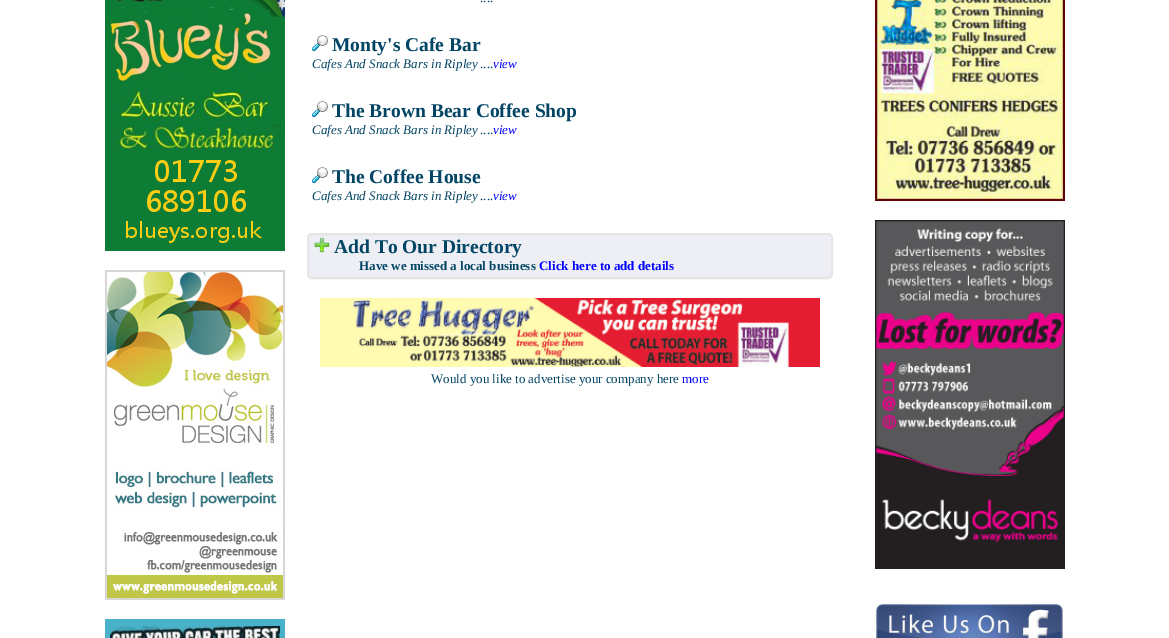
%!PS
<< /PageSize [1169 638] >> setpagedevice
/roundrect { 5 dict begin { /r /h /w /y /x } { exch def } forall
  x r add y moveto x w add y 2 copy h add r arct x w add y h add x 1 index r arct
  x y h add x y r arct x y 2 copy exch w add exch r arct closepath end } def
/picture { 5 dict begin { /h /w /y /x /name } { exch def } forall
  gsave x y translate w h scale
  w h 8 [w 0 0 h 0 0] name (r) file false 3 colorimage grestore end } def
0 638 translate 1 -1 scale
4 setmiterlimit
1 setgray
0 0 1169 638 rectfill
(img1.rgb) 105 0 180 251 picture
(img2.rgb) 105 270 180 330 picture
(img3.rgb) 105 619 180 19 picture
/LiberationSerif-Regular [13 0 0 -13 0 0] selectfont
0.004 0.267 0.392 setrgbcolor
480 2 moveto (....) show
(img4.rgb) 312 35 16 16 picture
/LiberationSerif-Bold [19.5 0 0 -19.5 0 0] selectfont
332 51 moveto (Monty's Cafe Bar) show
/LiberationSerif-Italic [13 0 0 -13 0 0] selectfont
312 68 moveto (Cafes And Snack Bars in Ripley) show
/LiberationSerif-Regular [13 0 0 -13 0 0] selectfont
480 68 moveto (....) show
/LiberationSerif-Italic [13 0 0 -13 0 0] selectfont
0 0 1 setrgbcolor
493 68 moveto (view) show
(img4.rgb) 312 101 16 16 picture
/LiberationSerif-Bold [19.5 0 0 -19.5 0 0] selectfont
0.004 0.267 0.392 setrgbcolor
332 117 moveto (The Brown Bear Coffee Shop) show
/LiberationSerif-Italic [13 0 0 -13 0 0] selectfont
312 134 moveto (Cafes And Snack Bars in Ripley) show
/LiberationSerif-Regular [13 0 0 -13 0 0] selectfont
480 134 moveto (....) show
/LiberationSerif-Italic [13 0 0 -13 0 0] selectfont
0 0 1 setrgbcolor
493 134 moveto (view) show
(img4.rgb) 312 167 16 16 picture
/LiberationSerif-Bold [19.5 0 0 -19.5 0 0] selectfont
0.004 0.267 0.392 setrgbcolor
332 183 moveto (The Coffee House) show
/LiberationSerif-Italic [13 0 0 -13 0 0] selectfont
312 200 moveto (Cafes And Snack Bars in Ripley) show
/LiberationSerif-Regular [13 0 0 -13 0 0] selectfont
480 200 moveto (....) show
/LiberationSerif-Italic [13 0 0 -13 0 0] selectfont
0 0 1 setrgbcolor
493 200 moveto (view) show
0.929 0.937 0.957 setrgbcolor
308 234 524 44 4 roundrect gsave fill grestore
0.902 0.898 0.898 setrgbcolor
2 setlinewidth
stroke
(img5.rgb) 314 237 16 16 picture
/LiberationSerif-Bold [19.5 0 0 -19.5 0 0] selectfont
0.004 0.267 0.392 setrgbcolor
334 253 moveto (Add To Our Directory) show
/LiberationSerif-Bold [13 0 0 -13 0 0] selectfont
359 270 moveto (Have we missed a local business) show
0 0 1 setrgbcolor
539 270 moveto (Click here to add details) show
(img6.rgb) 320 298 500 69 picture
/LiberationSerif-Regular [13 0 0 -13 0 0] selectfont
0.004 0.267 0.392 setrgbcolor
431 383 moveto (Would you like to advertise your company here) show
0 0 1 setrgbcolor
682 383 moveto (more) show
(img7.rgb) 875 0 190 201 picture
(img8.rgb) 875 220 190 349 picture
(img9.rgb) 876 604 187 34 picture
showpage
